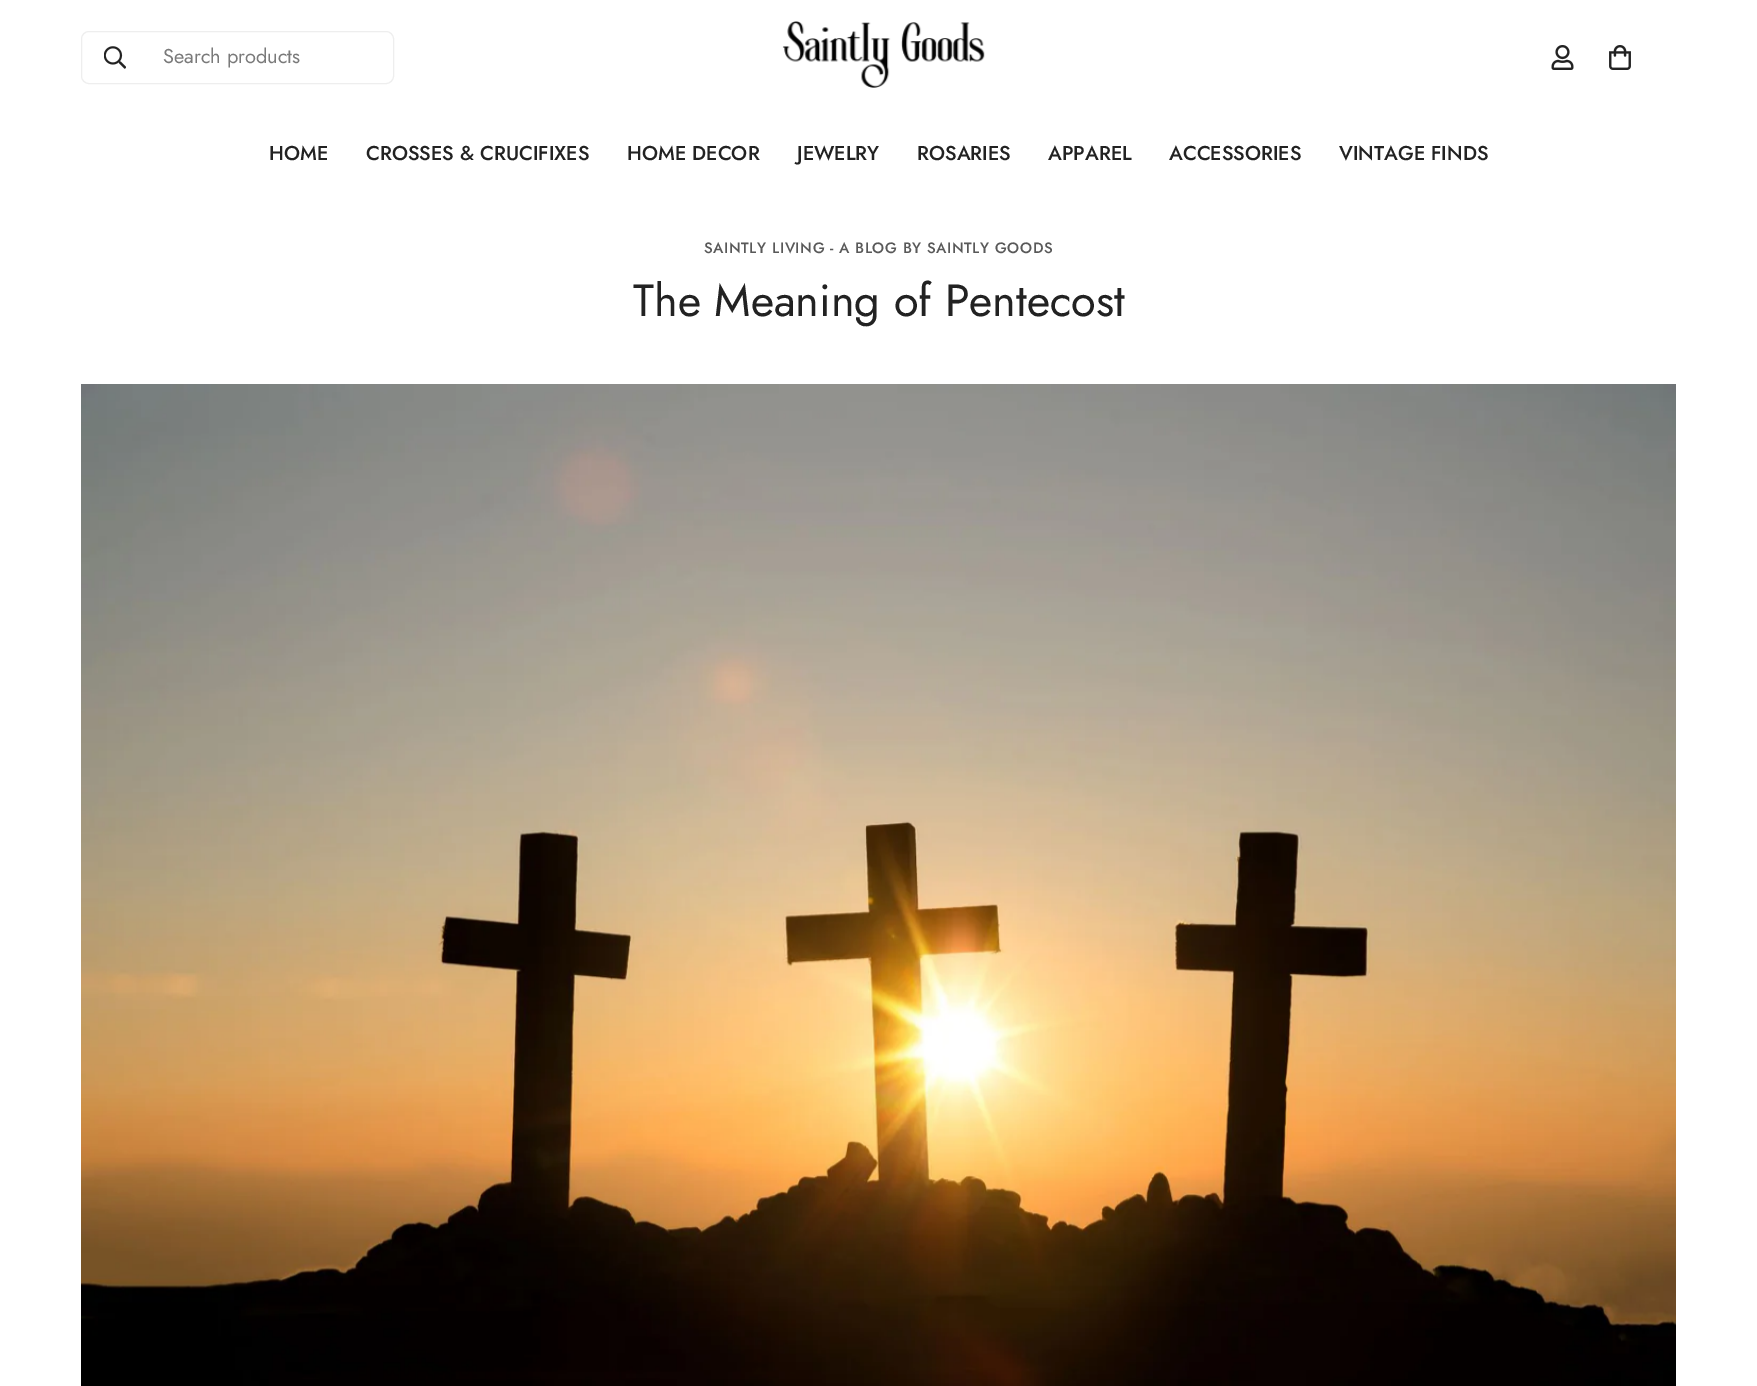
%!PS
<< /PageSize [1757 1386] >> setpagedevice
/roundrect { 5 dict begin { /r /h /w /y /x } { exch def } forall
  x r add y moveto x w add y 2 copy h add r arct x w add y h add x 1 index r arct
  x y h add x y r arct x y 2 copy exch w add exch r arct closepath end } def
/picture { 5 dict begin { /h /w /y /x /name } { exch def } forall
  gsave x y translate w h scale
  w h 8 [w 0 0 h 0 0] name (r) file false 3 colorimage grestore end } def
0 1386 translate 1 -1 scale
4 setmiterlimit
1 setgray
0 0 1757 1386 rectfill
0.933 setgray
81.5 31.5 312 52 7.5 roundrect stroke
(img1.rgb) 104 46 22 23 picture
/Jost-Regular [20 0 0 -20 0 0] selectfont
0.478 setgray
163 63 moveto (Search products) show
(img2.rgb) 782 21 203 67 picture
(img3.rgb) 1551 45 23 25 picture
(img4.rgb) 1609 45 22 25 picture
/Jost-Medium [20 0 0 -20 0 0] selectfont
0.133 setgray
269 160 moveto (HOME) show
366 160 moveto (CROSSES & CRUCIFIXES) show
627 160 moveto (HOME DECOR) show
797 160 moveto (JEWELRY) show
917 160 moveto (ROSARIES) show
1048 160 moveto (APPAREL) show
1169 160 moveto (ACCESSORIES) show
1339 160 moveto (VINTAGE FINDS) show
/Jost-Medium [15 0 0 -15 0 0] selectfont
0.349 setgray
704 253 moveto 0.6 0 (SAINTLY LIVING - A BLOG BY SAINTLY GOODS) ashow
/Jost-Regular [45 0 0 -45 0 0] selectfont
0.133 setgray
633 316 moveto (The Meaning of Pentecost) show
(img5.rgb) 81 384 1595 1002 picture
showpage
